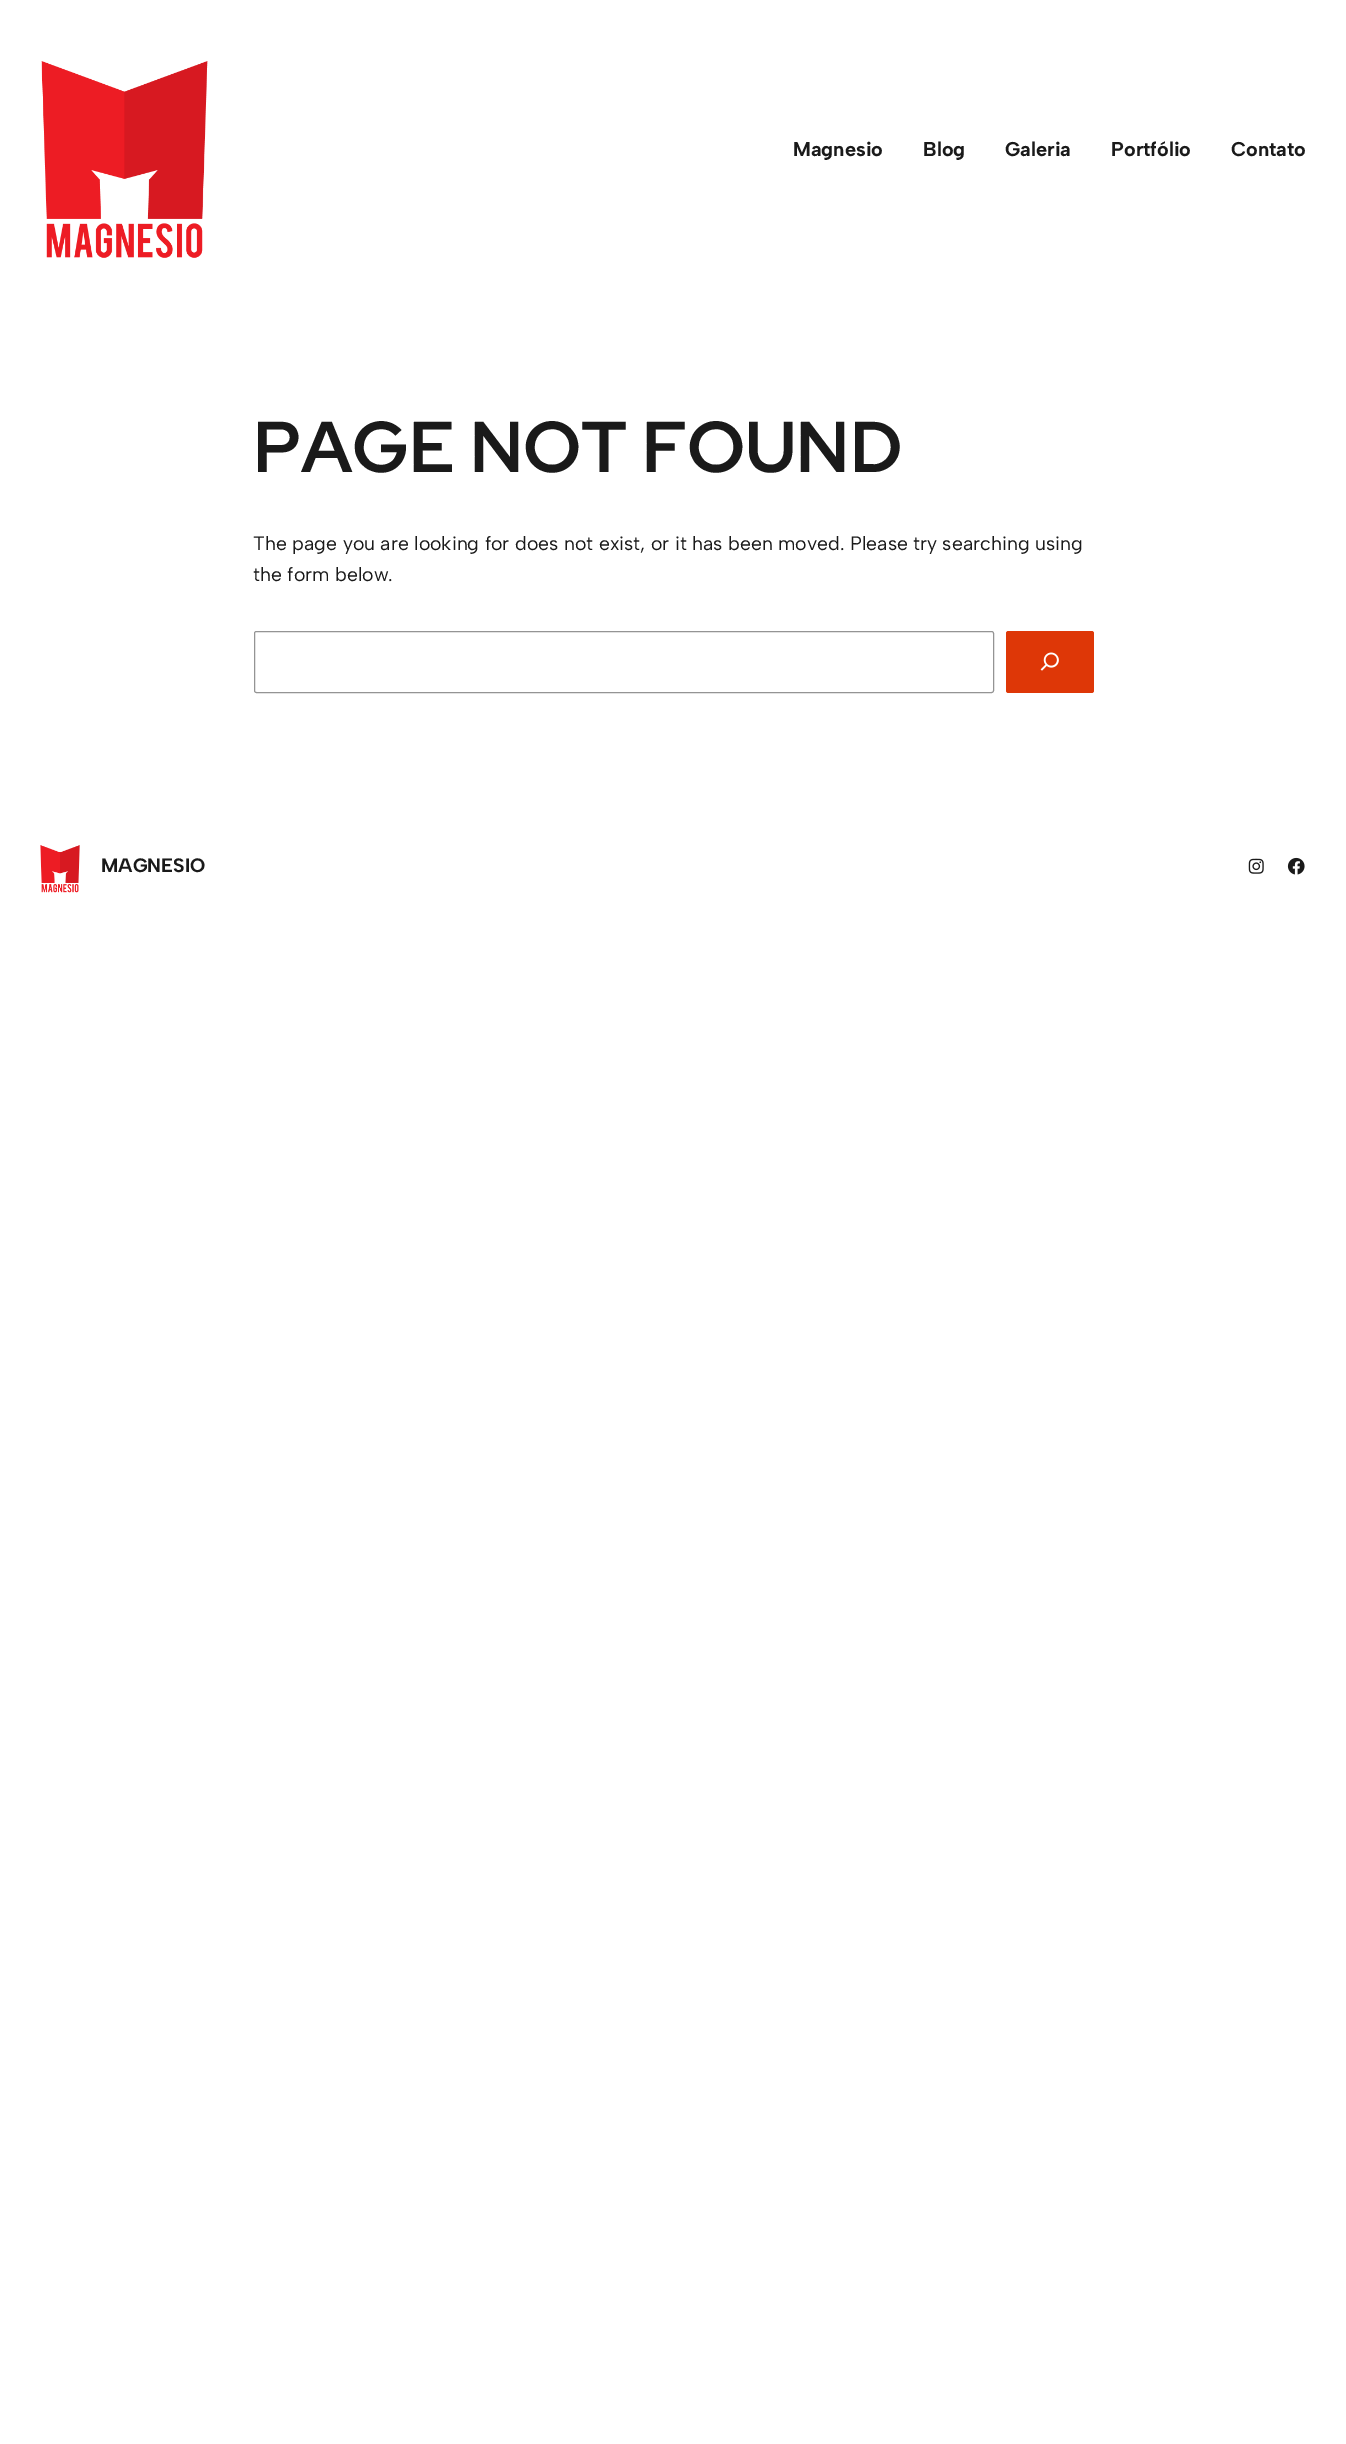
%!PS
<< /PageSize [1346 2444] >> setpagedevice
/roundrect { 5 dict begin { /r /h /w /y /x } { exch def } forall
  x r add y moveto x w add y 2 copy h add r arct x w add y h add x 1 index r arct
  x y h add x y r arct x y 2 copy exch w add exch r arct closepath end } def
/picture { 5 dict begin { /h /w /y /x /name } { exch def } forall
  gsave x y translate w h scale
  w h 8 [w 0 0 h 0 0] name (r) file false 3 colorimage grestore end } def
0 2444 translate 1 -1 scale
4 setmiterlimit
1 setgray
0 0 1346 2444 rectfill
(img1.rgb) 41 61 167 197 picture
/AlbertSans-Bold [20 0 0 -20 0 0] selectfont
0.102 setgray
793 156 moveto (Magnesio) show
923 156 moveto (Blog) show
1005 156 moveto (Galeria) show
1111 156 moveto (Portfólio) show
1231 156 moveto (Contato) show
/RedHatDisplay-Bold [71.75 0 0 -71.75 0 0] selectfont
253 472 moveto (PAGE NOT FOUND) show
/AlbertSans-Regular [19.45 0 0 -19.45 0 0] selectfont
253 550 moveto (The page you are looking for does not exist, or it has been moved. Please try searching using) show
253 581 moveto (the form below.) show
0.58 setgray
254.5 631.5 739 61 2 roundrect stroke
0.871 0.216 0.027 setrgbcolor
1006 631 88 62 2.5 roundrect fill
(img2.rgb) 1040 652 19 19 picture
(img3.rgb) 40 845 40 48 picture
/AlbertSans-Bold [19.45 0 0 -19.45 0 0] selectfont
0.102 setgray
101 872 moveto (MAGNESIO) show
(img4.rgb) 1248 858 16 16 picture
(img5.rgb) 1287 857 18 18 picture
showpage
